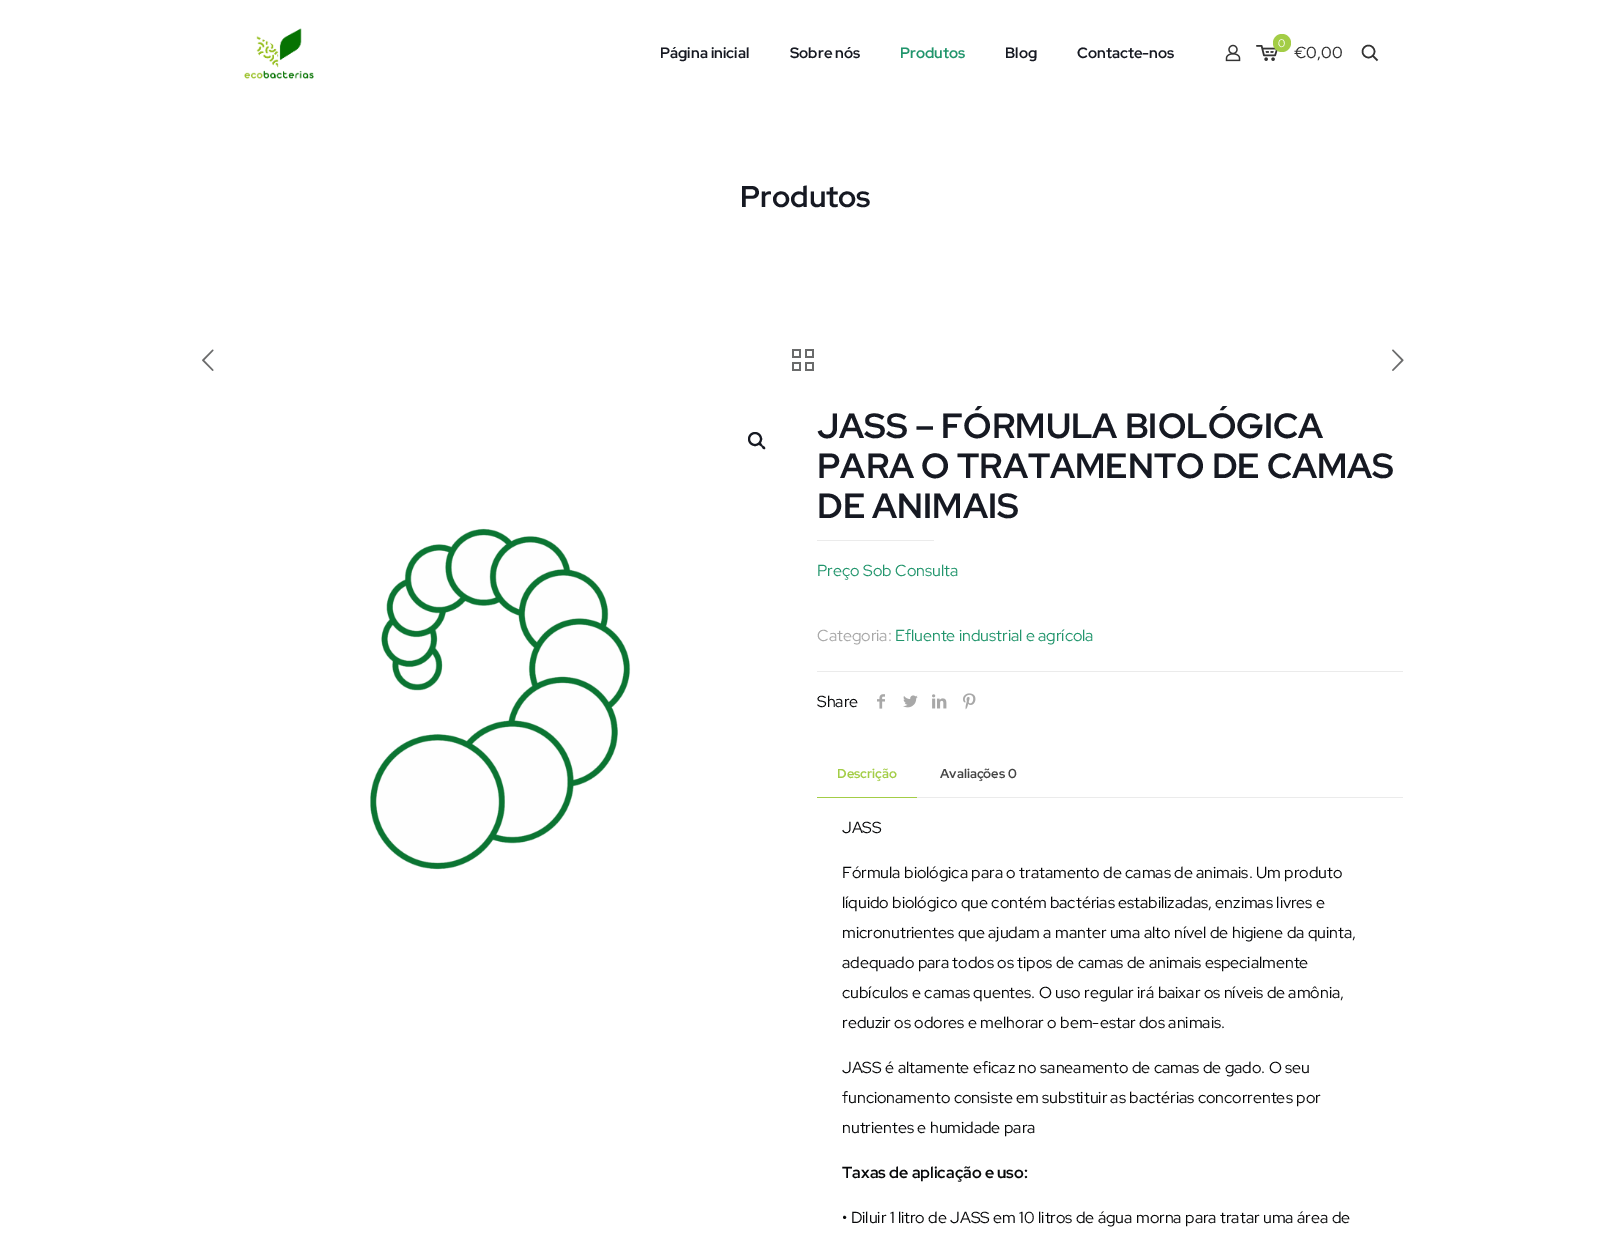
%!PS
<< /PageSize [1610 1249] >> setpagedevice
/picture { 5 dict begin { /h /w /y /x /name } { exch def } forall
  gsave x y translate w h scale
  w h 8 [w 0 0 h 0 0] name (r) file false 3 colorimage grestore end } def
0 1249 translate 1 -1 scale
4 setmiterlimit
1 setgray
0 0 1610 1249 rectfill
(img1.rgb) 244 28 70 51 picture
/RedHatDisplay-Bold [15 0 0 -15 0 0] selectfont
0.086 0.098 0.133 setrgbcolor
660 58 moveto (Página inicial) show
790 58 moveto (Sobre nós) show
0.129 0.584 0.424 setrgbcolor
900 58 moveto (Produtos) show
0.086 0.098 0.133 setrgbcolor
1005 58 moveto (Blog) show
1077 58 moveto (Contacte-nos) show
(img2.rgb) 1225 44 16 18 picture
(img3.rgb) 1256 45 22 16 picture
0.639 0.804 0.275 setrgbcolor
newpath 1282 43 9 0 360 arc closepath fill
/RedHatDisplay-Regular [11 0 0 -11 0 0] selectfont
1 setgray
1278 47 moveto (0) show
/RedHatDisplay-Medium [16 0 0 -16 0 0] selectfont
0.2 setgray
1294 58 moveto (€0,00) show
1.5 setlinewidth
newpath 1368.5 51.5 6 0 360 arc closepath stroke
newpath 1372.5 55.5 moveto 1377.5 60.5 lineto stroke
/RedHatDisplay-Bold [30 0 0 -30 0 0] selectfont
0.086 0.098 0.133 setrgbcolor
740 207 moveto (Produtos) show
(img4.rgb) 202 349 12 22 picture
(img5.rgb) 792 349 22 22 picture
(img6.rgb) 1392 349 12 22 picture
2 setlinewidth
newpath 755 439 6 0 360 arc closepath stroke
newpath 759 443 moveto 760.5 442 762 444.5 762.5 445.5 curveto 763.5 446 766 447.5 765 449 curveto 763.5 450 762 447.5 761.5 446.5 curveto 760.5 446 758 444.5 759 443 curveto closepath fill
(img7.rgb) 370 528 261 342 picture
/RedHatDisplay-Bold [35 0 0 -35 0 0] selectfont
817 438 moveto (JASS – FÓRMULA BIOLÓGICA) show
817 478 moveto (PARA O TRATAMENTO DE CAMAS) show
817 518 moveto (DE ANIMAIS) show
0.922 setgray
817 540 117 1 rectfill
/RedHatDisplay-Regular [16 0 0 -16 0 0] selectfont
0.129 0.584 0.424 setrgbcolor
817 576 moveto (Preço Sob Consulta) show
0.659 setgray
817 641 moveto (Categoria:) show
0.129 0.584 0.424 setrgbcolor
895 641 moveto (Efluente industrial e agrícola) show
0.922 setgray
817 671 586 1 rectfill
0.027 0.031 0.035 setrgbcolor
817 707 moveto (Share) show
(img8.rgb) 877 694 8 15 picture
(img9.rgb) 903 695 15 13 picture
(img10.rgb) 932 694 15 15 picture
(img11.rgb) 963 693 13 17 picture
0.922 setgray
917 797 486 1 rectfill
/RedHatDisplay-Bold [13 0 0 -13 0 0] selectfont
0.639 0.804 0.275 setrgbcolor
837 778 moveto (Descrição) show
817 797 100 1 rectfill
0.267 setgray
940 778 moveto (Avaliações 0) show
/RedHatDisplay-Regular [16 0 0 -16 0 0] selectfont
0.027 0.031 0.035 setrgbcolor
842 833 moveto (JASS) show
842 878 moveto (Fórmula biológica para o tratamento de camas de animais. Um produto) show
842 908 moveto (líquido biológico que contém bactérias estabilizadas, enzimas livres e) show
842 938 moveto (micronutrientes que ajudam a manter uma alto nível de higiene da quinta,) show
842 968 moveto (adequado para todos os tipos de camas de animais especialmente) show
842 998 moveto (cubículos e camas quentes. O uso regular irá baixar os níveis de amônia,) show
842 1028 moveto (reduzir os odores e melhorar o bem-estar dos animais.) show
842 1073 moveto (JASS é altamente eficaz no saneamento de camas de gado. O seu) show
842 1103 moveto (funcionamento consiste em substituir as bactérias concorrentes por) show
842 1133 moveto (nutrientes e humidade para) show
/RedHatDisplay-Bold [16 0 0 -16 0 0] selectfont
842 1178 moveto (Taxas de aplicação e uso:) show
/RedHatDisplay-Regular [16 0 0 -16 0 0] selectfont
842 1223 moveto (• Diluir 1 litro de JASS em 10 litros de água morna para tratar uma área de) show
showpage
